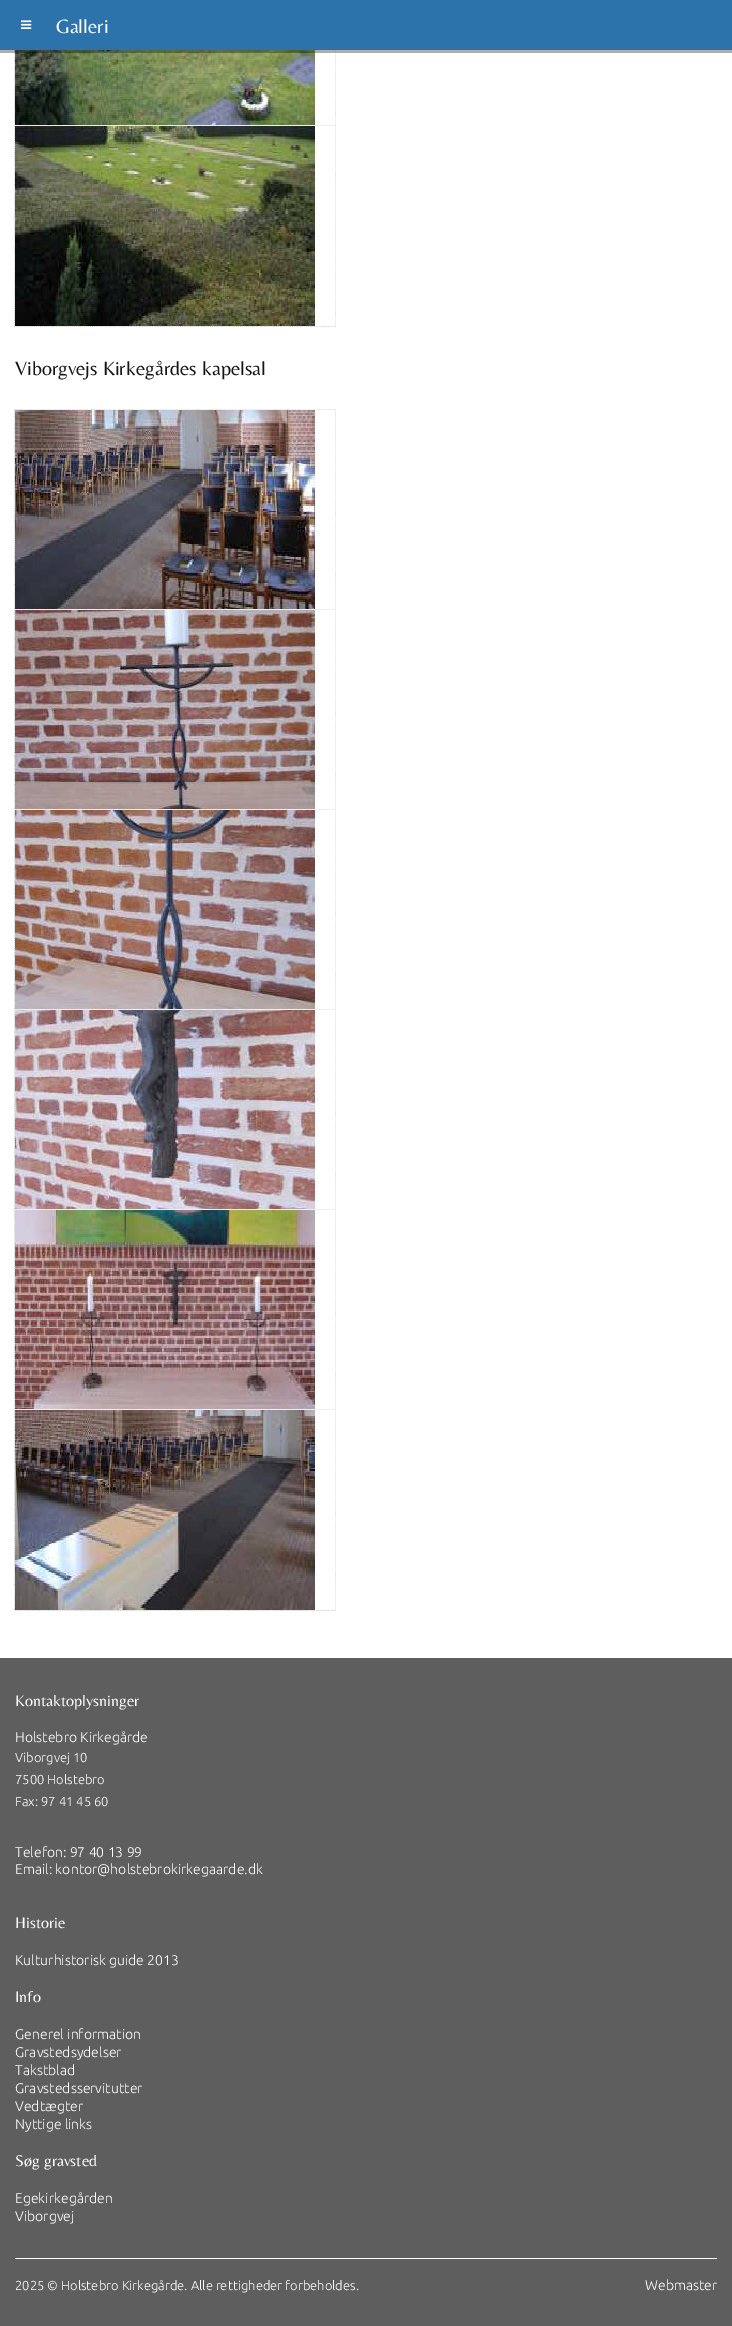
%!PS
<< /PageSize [732 2326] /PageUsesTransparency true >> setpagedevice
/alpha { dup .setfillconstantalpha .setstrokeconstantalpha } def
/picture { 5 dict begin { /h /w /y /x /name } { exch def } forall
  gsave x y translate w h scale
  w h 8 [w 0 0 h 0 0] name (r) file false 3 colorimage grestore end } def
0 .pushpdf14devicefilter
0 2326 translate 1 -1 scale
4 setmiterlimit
1 setgray
0 0 732 2326 rectfill
(img2.rgb) 14 50 322 75 picture
0.32 alpha
0 setgray
0 50 732 3 rectfill
1 alpha
0.176 0.451 0.671 setrgbcolor
0 0 732 50 rectfill
(img1.rgb) 21 20 11 9 picture
/Belleza-Regular [20 0 0 -20 0 0] selectfont
1 setgray
56 33 moveto (Galleri) show
(img3.rgb) 14 125 322 202 picture
0.082 setgray
15 375 moveto (Viborgvejs Kirkegårdes kapelsal) show
(img4.rgb) 14 409 322 200 picture
(img5.rgb) 14 609 322 200 picture
(img6.rgb) 14 809 322 200 picture
(img7.rgb) 14 1009 322 200 picture
(img8.rgb) 14 1209 322 200 picture
(img9.rgb) 14 1409 322 202 picture
0.369 setgray
0 1658 732 668 rectfill
/Belleza-Regular [16 0 0 -16 0 0] selectfont
1 setgray
15 1706 moveto (Kontaktoplysninger) show
/Ubuntu-Light [14 0 0 -14 0 0] selectfont
15 1742 moveto (Holstebro Kirkegårde) show
/Ubuntu-Light [13 0 0 -13 0 0] selectfont
15 1762 moveto (Viborgvej 10) show
15 1784 moveto (7500 Holstebro) show
15 1806 moveto (Fax: 97 41 45 60) show
/Ubuntu-Light [14 0 0 -14 0 0] selectfont
15 1857 moveto (Telefon: 97 40 13 99) show
15 1874 moveto (Email: kontor@holstebrokirkegaarde.dk) show
/Belleza-Regular [16 0 0 -16 0 0] selectfont
15 1928 moveto (Historie) show
/Ubuntu-Light [14 0 0 -14 0 0] selectfont
15 1965 moveto (Kulturhistorisk guide 2013) show
/Belleza-Regular [16 0 0 -16 0 0] selectfont
15 2002 moveto (Info) show
/Ubuntu-Light [14 0 0 -14 0 0] selectfont
15 2039 moveto (Generel information) show
15 2057 moveto (Gravstedsydelser) show
15 2075 moveto (Takstblad) show
15 2093 moveto (Gravstedsservitutter) show
15 2111 moveto (Vedtægter) show
15 2129 moveto (Nyttige links) show
/Belleza-Regular [16 0 0 -16 0 0] selectfont
15 2166 moveto (Søg gravsted) show
/Ubuntu-Light [14 0 0 -14 0 0] selectfont
15 2203 moveto (Egekirkegården) show
15 2221 moveto (Viborgvej) show
15 2258 702 1 rectfill
/Ubuntu-Light [13 0 0 -13 0 0] selectfont
15 2290 moveto (2025 © Holstebro Kirkegårde. Alle rettigheder forbeholdes.) show
/Ubuntu-Light [14 0 0 -14 0 0] selectfont
645 2290 moveto (Webmaster) show
.poppdf14devicefilter showpage
